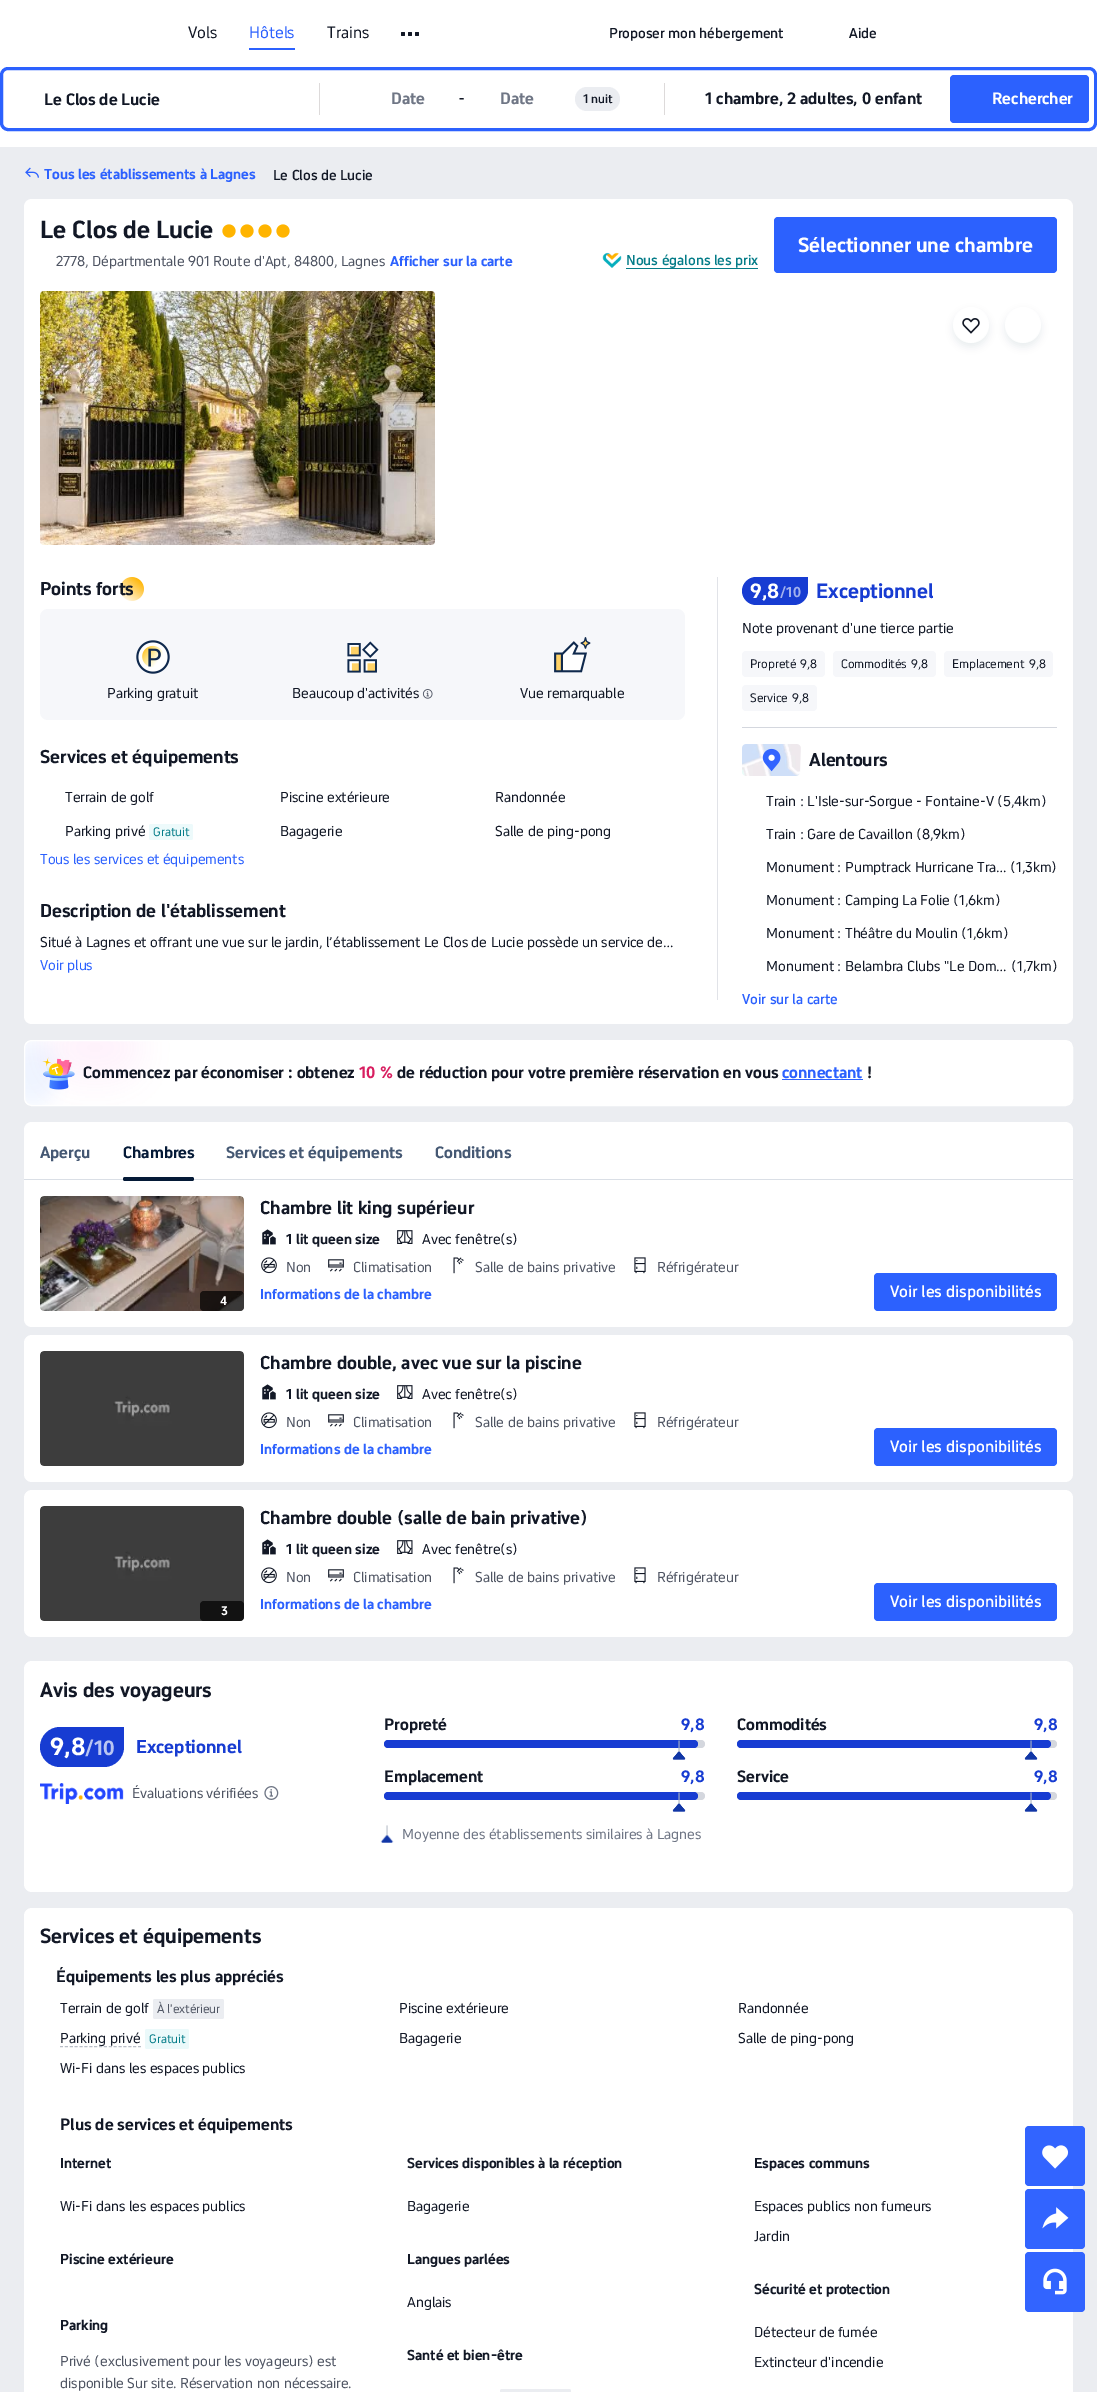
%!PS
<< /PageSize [1097 2392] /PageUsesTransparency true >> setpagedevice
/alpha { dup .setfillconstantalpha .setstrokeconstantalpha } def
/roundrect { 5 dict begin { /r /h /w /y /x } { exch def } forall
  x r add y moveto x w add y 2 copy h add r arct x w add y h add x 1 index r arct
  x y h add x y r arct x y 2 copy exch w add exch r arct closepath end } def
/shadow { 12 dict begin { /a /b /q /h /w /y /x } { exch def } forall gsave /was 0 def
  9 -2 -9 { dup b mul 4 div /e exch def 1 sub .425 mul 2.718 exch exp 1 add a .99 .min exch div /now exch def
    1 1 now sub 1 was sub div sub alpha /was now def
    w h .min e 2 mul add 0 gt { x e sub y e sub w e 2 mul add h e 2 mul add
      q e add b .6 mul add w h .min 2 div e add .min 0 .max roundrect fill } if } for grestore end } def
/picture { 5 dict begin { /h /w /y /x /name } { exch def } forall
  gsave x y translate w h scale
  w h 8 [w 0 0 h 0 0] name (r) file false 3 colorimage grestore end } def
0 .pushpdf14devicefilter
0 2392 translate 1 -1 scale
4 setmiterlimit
0.922 0.929 0.945 setrgbcolor
0 0 1097 2392 rectfill
1 setgray
0 0 1097 147 rectfill
/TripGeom-Regular [16 0 0 -16 0 0] selectfont
0.071 0.094 0.149 setrgbcolor
188 38 moveto (Vols) show
0.173 0.38 0.996 setrgbcolor
249 38 moveto (Hôtels) show
249 48 46 2 rectfill
0.071 0.094 0.149 setrgbcolor
327 38 moveto (Trains) show
401 32 4 4 1 roundrect fill
408 32 4 4 1 roundrect fill
415 32 4 4 1 roundrect fill
/TripGeom-Medium [14 0 0 -14 0 0] selectfont
609 38 moveto (Proposer mon hébergement) show
849 38 moveto (Aide) show
0.173 0.38 0.996 setrgbcolor
3 setlinewidth
1.5 68.5 1094 61 6.5 roundrect stroke
/TripGeom-Bold [16 0 0 -16 0 0] selectfont
0.071 0.094 0.149 setrgbcolor
44 105 moveto (Le Clos de Lucie) show
0.867 0.855 0.855 setrgbcolor
319 83 1 32 rectfill
0.435 0.463 0.522 setrgbcolor
391 104 moveto (Date) show
/TripGeom-Bold [12 0 0 -12 0 0] selectfont
0.071 0.094 0.149 setrgbcolor
459 103 moveto (-) show
/TripGeom-Bold [16 0 0 -16 0 0] selectfont
0.435 0.463 0.522 setrgbcolor
500 104 moveto (Date) show
0.922 0.929 0.945 setrgbcolor
575 87 45 24 12 roundrect fill
/TripGeom-Medium [12 0 0 -12 0 0] selectfont
0.071 0.094 0.149 setrgbcolor
583 103 moveto (1 nuit) show
0.867 0.855 0.855 setrgbcolor
664 83 1 32 rectfill
/TripGeom-Bold [16 0 0 -16 0 0] selectfont
0.071 0.094 0.149 setrgbcolor
705 104 moveto (1 chambre, 2 adultes, 0 enfant) show
0.173 0.38 0.996 setrgbcolor
950 75 139 48 4 roundrect fill
1 setgray
992 104 moveto (Rechercher) show
(img1.rgb) 25 167 14 11 picture
/TripGeom-Bold [14 0 0 -14 0 0] selectfont
0.173 0.38 0.996 setrgbcolor
44 179 moveto (Tous les établissements à Lagnes) show
/TripGeom-Medium [14 0 0 -14 0 0] selectfont
0.071 0.094 0.149 setrgbcolor
273 180 moveto (Le Clos de Lucie) show
1 setgray
newpath 32 199 moveto 1065 199 lineto 1069.5 199 1073 202.5 1073 207 curveto 1073 549 lineto 24 549 lineto 24 207 lineto 24 202.5 27.5 199 32 199 curveto closepath fill
/TripGeom-Bold [24 0 0 -24 0 0] selectfont
0.071 0.094 0.149 setrgbcolor
40 238 moveto (Le Clos de Lucie) show
(img2.rgb) 222 224 14 14 picture
(img2.rgb) 240 224 14 14 picture
(img2.rgb) 258 224 14 14 picture
(img2.rgb) 276 224 14 14 picture
/TripGeom-Regular [14 0 0 -14 0 0] selectfont
0.31 0.333 0.388 setrgbcolor
56 266 moveto (2778, Départmentale 901 Route d'Apt, 84800, Lagnes) show
/TripGeom-Bold [14 0 0 -14 0 0] selectfont
0.173 0.38 0.996 setrgbcolor
390 266 moveto (Afficher sur la carte) show
774 217 283 56 4 roundrect fill
/TripGeom-Bold [20 0 0 -20 0 0] selectfont
1 setgray
798 252 moveto (Sélectionner une chambre) show
(img3.rgb) 602 252 20 16 picture
/TripGeom-Medium [14 0 0 -14 0 0] selectfont
0.016 0.486 0.533 setrgbcolor
626 265 moveto (Nous égalons les prix) show
626 268 132 1 rectfill
(img4.rgb) 40 291 395 254 picture
gsave
newpath 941 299 moveto 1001 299 lineto 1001 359 lineto 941 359 lineto closepath 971 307 moveto 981 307 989 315 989 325 curveto 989 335 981 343 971 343 curveto 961 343 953 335 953 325 curveto 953 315 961 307 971 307 curveto closepath eoclip newpath
0.059 0.161 0.302 setrgbcolor
953 311 36 36 18 3.5 0.08 shadow
grestore
0.9 alpha
1 setgray
newpath 971 325 18 0 360 arc closepath fill
1 alpha
(img5.rgb) 962 318 18 16 picture
gsave
newpath 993 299 moveto 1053 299 lineto 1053 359 lineto 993 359 lineto closepath 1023 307 moveto 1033 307 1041 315 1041 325 curveto 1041 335 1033 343 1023 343 curveto 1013 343 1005 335 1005 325 curveto 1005 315 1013 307 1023 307 curveto closepath eoclip newpath
0.059 0.161 0.302 setrgbcolor
1005 311 36 36 18 3.5 0.08 shadow
grestore
0.9 alpha
newpath 1023 325 18 0 360 arc closepath fill
1 alpha
newpath 24 549 moveto 1073 549 lineto 1073 1016 lineto 1073 1020.5 1069.5 1024 1065 1024 curveto 32 1024 lineto 27.5 1024 24 1020.5 24 1016 curveto closepath fill
0.882 0.89 0.91 setrgbcolor
717 577 1 423 rectfill
(img6.rgb) 120 577 24 24 picture
/TripGeom-Bold [18 0 0 -18 0 0] selectfont
0.071 0.094 0.149 setrgbcolor
40 595 moveto (Points forts) show
0.965 0.969 0.98 setrgbcolor
40 609 645 111 8 roundrect fill
(img7.rgb) 136 640 34 34 picture
/TripGeom-Regular [14 0 0 -14 0 0] selectfont
0.071 0.094 0.149 setrgbcolor
107 698 moveto (Parking gratuit) show
(img8.rgb) 347 641 32 32 picture
292 698 moveto (Beaucoup d'activités) show
(img9.rgb) 422 689 11 10 picture
(img10.rgb) 554 637 37 36 picture
520 698 moveto (Vue remarquable) show
/TripGeom-Bold [18 0 0 -18 0 0] selectfont
40 763 moveto (Services et équipements) show
/TripGeom-Regular [14 0 0 -14 0 0] selectfont
65 802 moveto (Terrain de golf) show
280 802 moveto (Piscine extérieure) show
495 802 moveto (Randonnée) show
65 836 moveto (Parking privé) show
0.929 0.98 0.984 setrgbcolor
149 824 44 16 2 roundrect fill
/TripGeom-Regular [12 0 0 -12 0 0] selectfont
0.016 0.486 0.533 setrgbcolor
153 836 moveto (Gratuit) show
/TripGeom-Regular [14 0 0 -14 0 0] selectfont
0.071 0.094 0.149 setrgbcolor
280 836 moveto (Bagagerie) show
495 836 moveto (Salle de ping-pong) show
0.173 0.38 0.996 setrgbcolor
40 864 moveto (Tous les services et équipements) show
/TripGeom-Bold [18 0 0 -18 0 0] selectfont
0.071 0.094 0.149 setrgbcolor
40 917 moveto (Description de l'établissement) show
/TripGeom-Regular [14 0 0 -14 0 0] selectfont
40 947 moveto (Situé à Lagnes et offrant une vue sur le jardin, l’établissement Le Clos de Lucie possède un service de…) show
0.173 0.38 0.996 setrgbcolor
40 970 moveto (Voir plus) show
0.09 0.235 0.824 setrgbcolor
newpath 756 577 moveto 808 577 lineto 808 591 lineto 808 598.5 801.5 605 794 605 curveto 756 605 lineto 748.5 605 742 598.5 742 591 curveto 742 583.5 748.5 577 756 577 curveto closepath fill
/TripGeom-Bold [20 0 0 -20 0 0] selectfont
1 setgray
750 598 moveto (9,8) show
/TripGeom-Bold [14 0 0 -14 0 0] selectfont
0.635 0.694 0.929 setrgbcolor
780 597 moveto (/10) show
/TripGeom-Bold [20 0 0 -20 0 0] selectfont
0.09 0.235 0.824 setrgbcolor
816 598 moveto (Exceptionnel) show
/TripGeom-Regular [14 0 0 -14 0 0] selectfont
0.071 0.094 0.149 setrgbcolor
742 633 moveto (Note provenant d'une tierce partie) show
0.965 0.969 0.98 setrgbcolor
742 651 83 26 4 roundrect fill
/TripGeom-Regular [12 0 0 -12 0 0] selectfont
0.071 0.094 0.149 setrgbcolor
750 668 moveto (Propreté) show
800 668 moveto (9,8) show
0.965 0.969 0.98 setrgbcolor
833 651 103 26 4 roundrect fill
0.071 0.094 0.149 setrgbcolor
841 668 moveto (Commodités) show
911 668 moveto (9,8) show
0.965 0.969 0.98 setrgbcolor
944 651 109 26 4 roundrect fill
0.071 0.094 0.149 setrgbcolor
952 668 moveto (Emplacement) show
1029 668 moveto (9,8) show
0.965 0.969 0.98 setrgbcolor
742 685 75 26 4 roundrect fill
0.071 0.094 0.149 setrgbcolor
750 702 moveto (Service) show
792 702 moveto (9,8) show
0.831 0.843 0.871 setrgbcolor
742 727 315 1 rectfill
(img11.rgb) 742 744 59 32 picture
/TripGeom-Bold [18 0 0 -18 0 0] selectfont
0.071 0.094 0.149 setrgbcolor
809 766 moveto (Alentours) show
/TripGeom-Regular [14 0 0 -14 0 0] selectfont
766 806 moveto (Train : L'Isle-sur-Sorgue - Fontaine-V) show
997 806 moveto (\(5,4km\)) show
766 839 moveto (Train : Gare de Cavaillon) show
916 839 moveto (\(8,9km\)) show
766 872 moveto (Monument : Pumptrack Hurricane Tra…) show
1010 872 moveto (\(1,3km\)) show
766 905 moveto (Monument : Camping La Folie) show
953 905 moveto (\(1,6km\)) show
766 938 moveto (Monument : Théâtre du Moulin) show
961 938 moveto (\(1,6km\)) show
766 971 moveto (Monument : Belambra Clubs "Le Dom…) show
1011 971 moveto (\(1,7km\)) show
/TripGeom-Medium [14 0 0 -14 0 0] selectfont
0.173 0.38 0.996 setrgbcolor
742 1004 moveto (Voir sur la carte) show
(img12.rgb) 25 1041 1047 64 picture
1 setgray
1 setlinewidth
24.5 1040.5 1048 65 7.5 roundrect stroke
(img13.rgb) 42 1057 33 33 picture
/TripGeom-Bold [16 0 0 -16 0 0] selectfont
0.071 0.094 0.149 setrgbcolor
83 1078 moveto (Commencez par économiser : obtenez) show
0.847 0.118 0.376 setrgbcolor
359 1078 moveto (10 %) show
0.071 0.094 0.149 setrgbcolor
397 1078 moveto (de réduction pour votre première réservation en vous) show
0.173 0.38 0.996 setrgbcolor
782 1078 moveto (connectant) show
782 1079 81 1 rectfill
0.071 0.094 0.149 setrgbcolor
867 1078 moveto (!) show
1 setgray
newpath 32 1122 moveto 1065 1122 lineto 1069.5 1122 1073 1125.5 1073 1130 curveto 1073 1180 lineto 24 1180 lineto 24 1130 lineto 24 1125.5 27.5 1122 32 1122 curveto closepath fill
0.855 0.875 0.902 setrgbcolor
24 1179 1049 1 rectfill
0.271 0.345 0.451 setrgbcolor
40 1158 moveto (Aperçu) show
0.02 0.102 0.216 setrgbcolor
123 1158 moveto (Chambres) show
1 setgray
newpath 24 1180 moveto 1073 1180 lineto 1073 1319 lineto 1073 1323.5 1069.5 1327 1065 1327 curveto 32 1327 lineto 27.5 1327 24 1323.5 24 1319 curveto closepath fill
0.02 0.102 0.216 setrgbcolor
123 1177 71 4 2 roundrect fill
0.271 0.345 0.451 setrgbcolor
226 1158 moveto (Services et équipements) show
435 1158 moveto (Conditions) show
(img14.rgb) 40 1196 204 115 picture
0.7 alpha
0 setgray
200 1291 44 20 4 roundrect fill
/TripGeom-Bold [12 0 0 -12 0 0] selectfont
1 alpha
1 setgray
220 1305 moveto (4) show
/TripGeom-Bold [18 0 0 -18 0 0] selectfont
0.071 0.094 0.149 setrgbcolor
260 1214 moveto (Chambre lit king supérieur) show
(img15.rgb) 262 1229 14 16 picture
/TripGeom-Bold [14 0 0 -14 0 0] selectfont
286 1244 moveto (1 lit queen size) show
(img16.rgb) 397 1230 16 14 picture
/TripGeom-Regular [14 0 0 -14 0 0] selectfont
422 1244 moveto (Avec fenêtre\(s\)) show
(img17.rgb) 261 1257 16 17 picture
0.31 0.333 0.388 setrgbcolor
286 1272 moveto (Non) show
(img18.rgb) 328 1259 16 13 picture
353 1272 moveto (Climatisation) show
(img19.rgb) 453 1257 11 17 picture
475 1272 moveto (Salle de bains privative) show
(img20.rgb) 634 1257 12 17 picture
657 1272 moveto (Réfrigérateur) show
/TripGeom-Bold [14 0 0 -14 0 0] selectfont
0.173 0.38 0.996 setrgbcolor
260 1299 moveto (Informations de la chambre) show
874 1273 183 38 4 roundrect fill
/TripGeom-Medium [16 0 0 -16 0 0] selectfont
1 setgray
890 1297 moveto (Voir les disponibilités) show
24 1335 1049 147 8 roundrect fill
(img21.rgb) 40 1351 204 115 picture
/TripGeom-Bold [18 0 0 -18 0 0] selectfont
0.071 0.094 0.149 setrgbcolor
260 1369 moveto (Chambre double, avec vue sur la piscine) show
(img15.rgb) 262 1384 14 16 picture
/TripGeom-Bold [14 0 0 -14 0 0] selectfont
286 1399 moveto (1 lit queen size) show
(img16.rgb) 397 1385 16 14 picture
/TripGeom-Regular [14 0 0 -14 0 0] selectfont
422 1399 moveto (Avec fenêtre\(s\)) show
(img17.rgb) 261 1412 16 17 picture
0.31 0.333 0.388 setrgbcolor
286 1427 moveto (Non) show
(img18.rgb) 328 1414 16 13 picture
353 1427 moveto (Climatisation) show
(img19.rgb) 453 1412 11 17 picture
475 1427 moveto (Salle de bains privative) show
(img20.rgb) 634 1412 12 17 picture
657 1427 moveto (Réfrigérateur) show
/TripGeom-Bold [14 0 0 -14 0 0] selectfont
0.173 0.38 0.996 setrgbcolor
260 1454 moveto (Informations de la chambre) show
874 1428 183 38 4 roundrect fill
/TripGeom-Medium [16 0 0 -16 0 0] selectfont
1 setgray
890 1452 moveto (Voir les disponibilités) show
24 1490 1049 147 8 roundrect fill
(img21.rgb) 40 1506 204 115 picture
0.7 alpha
0 setgray
200 1601 44 20 4 roundrect fill
/TripGeom-Bold [12 0 0 -12 0 0] selectfont
1 alpha
1 setgray
221 1615 moveto (3) show
/TripGeom-Bold [18 0 0 -18 0 0] selectfont
0.071 0.094 0.149 setrgbcolor
260 1524 moveto (Chambre double \(salle de bain privative\)) show
(img15.rgb) 262 1539 14 16 picture
/TripGeom-Bold [14 0 0 -14 0 0] selectfont
286 1554 moveto (1 lit queen size) show
(img16.rgb) 397 1540 16 14 picture
/TripGeom-Regular [14 0 0 -14 0 0] selectfont
422 1554 moveto (Avec fenêtre\(s\)) show
(img17.rgb) 261 1567 16 17 picture
0.31 0.333 0.388 setrgbcolor
286 1582 moveto (Non) show
(img18.rgb) 328 1569 16 13 picture
353 1582 moveto (Climatisation) show
(img19.rgb) 453 1567 11 17 picture
475 1582 moveto (Salle de bains privative) show
(img20.rgb) 634 1567 12 17 picture
657 1582 moveto (Réfrigérateur) show
/TripGeom-Bold [14 0 0 -14 0 0] selectfont
0.173 0.38 0.996 setrgbcolor
260 1609 moveto (Informations de la chambre) show
874 1583 183 38 4 roundrect fill
/TripGeom-Medium [16 0 0 -16 0 0] selectfont
1 setgray
890 1607 moveto (Voir les disponibilités) show
24 1661 1049 231 8 roundrect fill
/TripGeom-Bold [20 0 0 -20 0 0] selectfont
0.071 0.094 0.149 setrgbcolor
40 1697 moveto (Avis des voyageurs) show
0.09 0.235 0.824 setrgbcolor
newpath 60 1727 moveto 124 1727 lineto 124 1747 lineto 124 1758 115 1767 104 1767 curveto 60 1767 lineto 49 1767 40 1758 40 1747 curveto 40 1736 49 1727 60 1727 curveto closepath fill
/TripGeom-Bold [24 0 0 -24 0 0] selectfont
1 setgray
50 1755 moveto (9,8) show
/TripGeom-Bold [20 0 0 -20 0 0] selectfont
0.725 0.773 0.949 setrgbcolor
85 1755 moveto (/10) show
/TripGeom-Bold [18 0 0 -18 0 0] selectfont
0.09 0.235 0.824 setrgbcolor
136 1753 moveto (Exceptionnel) show
(img22.rgb) 40 1783 84 21 picture
/TripGeom-Regular [14 0 0 -14 0 0] selectfont
0.31 0.333 0.388 setrgbcolor
132 1798 moveto (Évaluations vérifiées) show
(img23.rgb) 264 1786 15 14 picture
/TripGeom-Bold [16 0 0 -16 0 0] selectfont
0.071 0.094 0.149 setrgbcolor
384 1730 moveto (Propreté) show
0.09 0.235 0.824 setrgbcolor
681 1730 moveto (9,8) show
0.831 0.843 0.871 setrgbcolor
384 1740 321 8 4 roundrect fill
0.09 0.235 0.824 setrgbcolor
384 1740 314 8 4 roundrect fill
(img24.rgb) 672 1740 14 20 picture
0.071 0.094 0.149 setrgbcolor
737 1730 moveto (Commodités) show
0.09 0.235 0.824 setrgbcolor
1034 1730 moveto (9,8) show
0.831 0.843 0.871 setrgbcolor
737 1740 320 8 4 roundrect fill
0.09 0.235 0.824 setrgbcolor
737 1740 314 8 4 roundrect fill
(img25.rgb) 1024 1740 14 20 picture
0.071 0.094 0.149 setrgbcolor
384 1782 moveto (Emplacement) show
0.09 0.235 0.824 setrgbcolor
681 1782 moveto (9,8) show
0.831 0.843 0.871 setrgbcolor
384 1792 321 8 4 roundrect fill
0.09 0.235 0.824 setrgbcolor
384 1792 314 8 4 roundrect fill
(img26.rgb) 672 1792 14 20 picture
0.071 0.094 0.149 setrgbcolor
737 1782 moveto (Service) show
0.09 0.235 0.824 setrgbcolor
1034 1782 moveto (9,8) show
0.831 0.843 0.871 setrgbcolor
737 1792 320 8 4 roundrect fill
0.09 0.235 0.824 setrgbcolor
737 1792 314 8 4 roundrect fill
(img27.rgb) 1024 1792 14 20 picture
(img28.rgb) 380 1825 14 18 picture
/TripGeom-Regular [14 0 0 -14 0 0] selectfont
0.435 0.463 0.522 setrgbcolor
402 1839 moveto (Moyenne des établissements similaires à Lagnes) show
1 setgray
24 1908 1049 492 8 roundrect fill
/TripGeom-Bold [20 0 0 -20 0 0] selectfont
0.071 0.094 0.149 setrgbcolor
40 1943 moveto (Services et équipements) show
/TripGeom-Bold [16 0 0 -16 0 0] selectfont
56 1982 moveto (Équipements les plus appréciés) show
/TripGeom-Regular [14 0 0 -14 0 0] selectfont
60 2013 moveto (Terrain de golf) show
0.922 0.929 0.945 setrgbcolor
153 1999 71 20 2 roundrect fill
/TripGeom-Regular [12 0 0 -12 0 0] selectfont
0.31 0.333 0.388 setrgbcolor
157 2013 moveto (À l'extérieur) show
/TripGeom-Regular [14 0 0 -14 0 0] selectfont
0.071 0.094 0.149 setrgbcolor
399 2013 moveto (Piscine extérieure) show
738 2013 moveto (Randonnée) show
60 2043 moveto (Parking privé) show
0.725 0.745 0.78 setrgbcolor
[3 1.88] 0 setdash
newpath 60 2046.5 moveto 141 2046.5 lineto stroke
0.922 0.976 0.98 setrgbcolor
145 2029 44 20 2 roundrect fill
/TripGeom-Regular [12 0 0 -12 0 0] selectfont
0.016 0.486 0.533 setrgbcolor
149 2043 moveto (Gratuit) show
/TripGeom-Regular [14 0 0 -14 0 0] selectfont
0.071 0.094 0.149 setrgbcolor
399 2043 moveto (Bagagerie) show
738 2043 moveto (Salle de ping-pong) show
60 2073 moveto (Wi-Fi dans les espaces publics) show
/TripGeom-Bold [16 0 0 -16 0 0] selectfont
60 2130 moveto (Plus de services et équipements) show
/TripGeom-Bold [14 0 0 -14 0 0] selectfont
60 2168 moveto (Internet) show
/TripGeom-Regular [14 0 0 -14 0 0] selectfont
60 2211 moveto (Wi-Fi dans les espaces publics) show
/TripGeom-Bold [14 0 0 -14 0 0] selectfont
407 2168 moveto (Services disponibles à la réception) show
/TripGeom-Regular [14 0 0 -14 0 0] selectfont
407 2211 moveto (Bagagerie) show
/TripGeom-Bold [14 0 0 -14 0 0] selectfont
754 2168 moveto (Espaces communs) show
/TripGeom-Regular [14 0 0 -14 0 0] selectfont
754 2211 moveto (Espaces publics non fumeurs) show
754 2241 moveto (Jardin) show
/TripGeom-Bold [14 0 0 -14 0 0] selectfont
60 2264 moveto (Piscine extérieure) show
407 2264 moveto (Langues parlées) show
/TripGeom-Regular [14 0 0 -14 0 0] selectfont
407 2307 moveto (Anglais) show
/TripGeom-Bold [14 0 0 -14 0 0] selectfont
754 2294 moveto (Sécurité et protection) show
/TripGeom-Regular [14 0 0 -14 0 0] selectfont
754 2337 moveto (Détecteur de fumée) show
754 2367 moveto (Extincteur d'incendie) show
/TripGeom-Bold [14 0 0 -14 0 0] selectfont
60 2330 moveto (Parking) show
/TripGeom-Regular [14 0 0 -14 0 0] selectfont
0.31 0.333 0.388 setrgbcolor
60 2366 moveto (Privé \(exclusivement pour les voyageurs\) est) show
60 2388 moveto (disponible Sur site. Réservation non nécessaire.) show
/TripGeom-Bold [14 0 0 -14 0 0] selectfont
0.071 0.094 0.149 setrgbcolor
407 2360 moveto (Santé et bien-être) show
0.922 0.929 0.945 setrgbcolor
500 2389 71 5 2 roundrect fill
0.196 0.392 1 setrgbcolor
1025 2126 60 60 4 roundrect fill
(img29.rgb) 1042 2145 27 24 picture
1025 2189 60 60 4 roundrect fill
(img30.rgb) 1042 2207 27 22 picture
1025 2252 60 60 4 roundrect fill
(img31.rgb) 1043 2268 24 27 picture
.poppdf14devicefilter showpage
